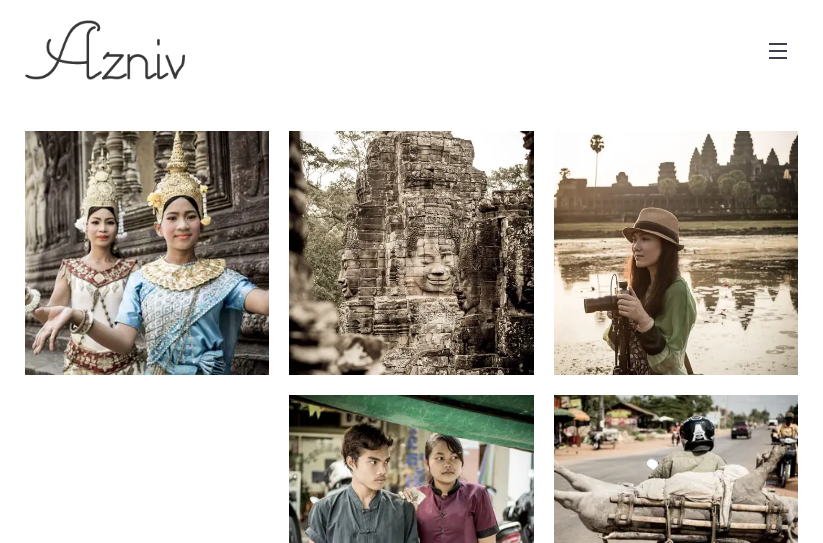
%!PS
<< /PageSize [823 543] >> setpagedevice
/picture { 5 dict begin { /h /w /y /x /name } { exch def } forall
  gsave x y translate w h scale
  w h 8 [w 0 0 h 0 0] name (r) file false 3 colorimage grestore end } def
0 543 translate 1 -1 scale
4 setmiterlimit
1 setgray
0 0 823 543 rectfill
(img1.rgb) 25 20 160 60 picture
0.216 0.247 0.318 setrgbcolor
769 50 18 2 rectfill
769 43 18 2 rectfill
769 57 18 2 rectfill
(img2.rgb) 25 131 244 244 picture
(img3.rgb) 289 131 245 244 picture
(img4.rgb) 554 131 244 244 picture
(img5.rgb) 289 395 245 148 picture
(img6.rgb) 554 395 244 148 picture
showpage
